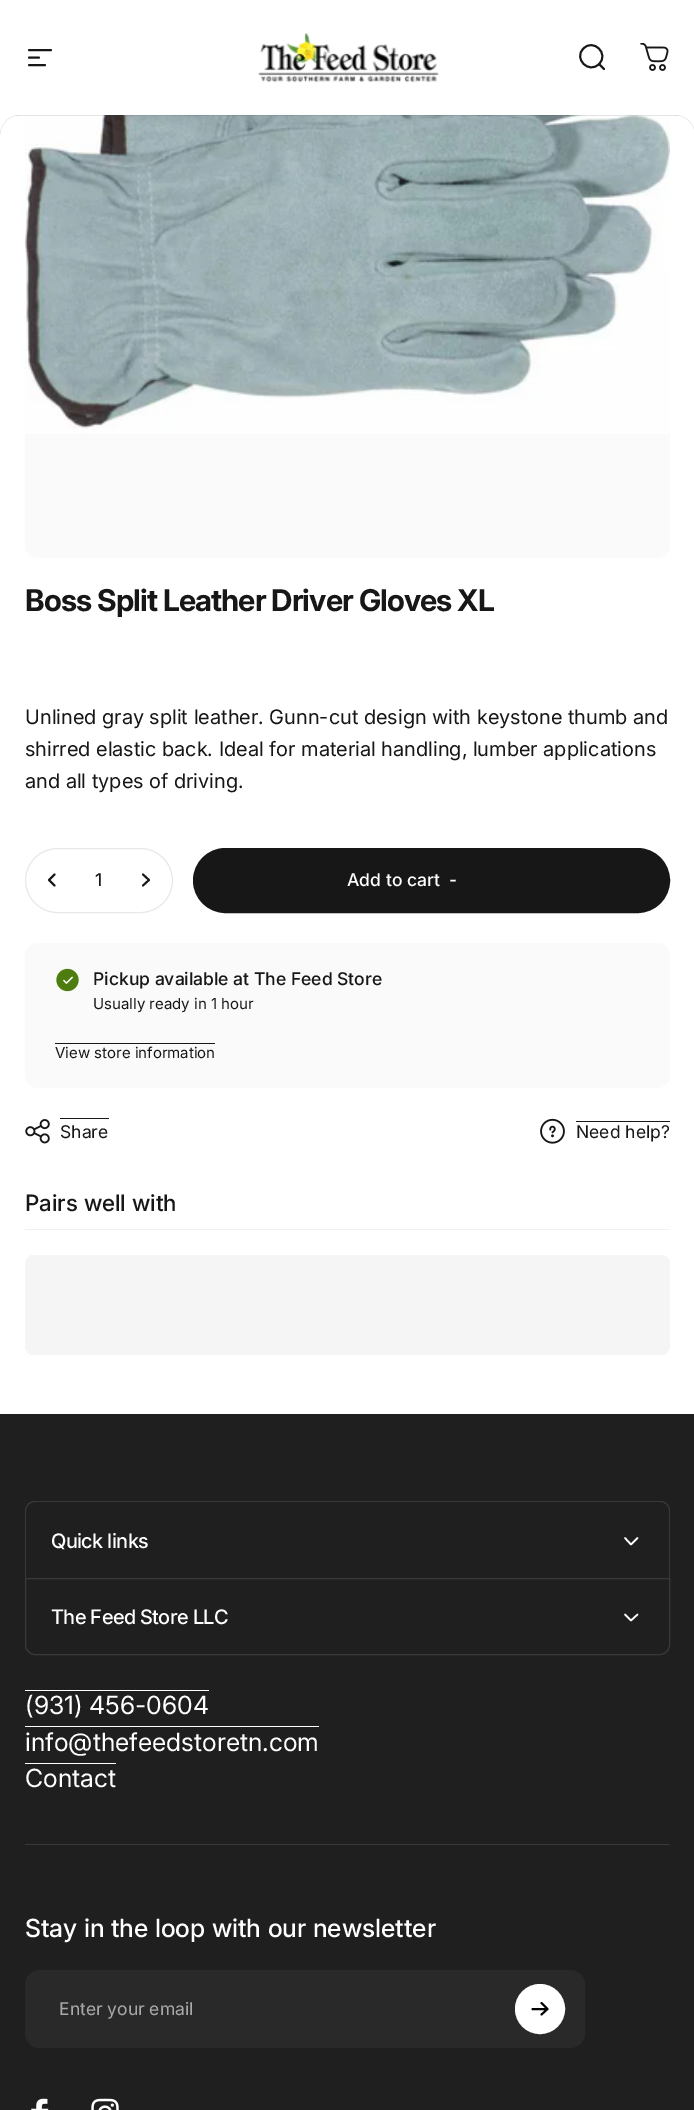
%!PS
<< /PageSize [694 2110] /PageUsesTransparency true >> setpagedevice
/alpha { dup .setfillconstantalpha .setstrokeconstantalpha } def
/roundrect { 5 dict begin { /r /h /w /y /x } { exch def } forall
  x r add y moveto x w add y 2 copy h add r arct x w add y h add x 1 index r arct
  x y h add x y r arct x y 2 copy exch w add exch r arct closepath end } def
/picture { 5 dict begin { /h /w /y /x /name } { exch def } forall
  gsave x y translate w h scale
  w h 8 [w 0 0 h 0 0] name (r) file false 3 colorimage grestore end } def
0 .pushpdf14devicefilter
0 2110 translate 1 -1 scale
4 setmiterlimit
1 setgray
0 0 694 2110 rectfill
0.98 setgray
25 -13 645 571 13 roundrect fill
1 setgray
25 0 645 115 rectfill
0.09 setgray
1.9 setlinewidth
1 setlinecap
newpath 29 50 moveto 51 50 lineto 29 57.5 moveto 39 57.5 lineto 29 65 moveto 45 65 lineto stroke
(img1.rgb) 258 33 181 50 picture
newpath 604 69 moveto 599 64 lineto 599 64 moveto 609.5 54 593.5 38 583.5 48.5 curveto 573 58.5 589 74.5 599 64 curveto closepath stroke
(img2.rgb) 640 43 29 28 picture
(img5.rgb) 25 115 645 319 picture
0.11 alpha
14 115 667 1 rectfill
1 alpha
(img3.rgb) 0 115 20 20 picture
(img4.rgb) 675 115 19 15 picture
/Inter-Bold [30 0 0 -30 0 0] selectfont
25 611 moveto -0.9 0 (Boss Split Leather Driver Gloves XL) ashow
/Inter-Regular [20 0 0 -20 0 0] selectfont
25 724 moveto (Unlined gray split leather. Gunn-cut design with keystone thumb and) show
25 756 moveto (shirred elastic back. Ideal for material handling, lumber applications) show
25 788 moveto (and all types of driving.) show
0.91 setgray
1 setlinewidth
0 setlinecap
25.5 848.5 147 64 32 roundrect stroke
0.09 setgray
1.9 setlinewidth
1 setlinecap
1 setlinejoin
newpath 54.5 874.5 moveto 49 880 lineto 54.5 885.5 lineto stroke
/Inter-Medium [17.5 0 0 -17.5 0 0] selectfont
95 886 moveto (1) show
newpath 143 874.5 moveto 149 880 lineto 143 885.5 lineto stroke
194.5 849.5 474 62 31 roundrect gsave fill grestore
3 setlinewidth
0 setlinecap
0 setlinejoin
stroke
1 setgray
347 886 moveto (Add to cart) show
449 886 moveto (-) show
0.98 setgray
25 943 645 145 13 roundrect fill
(img6.rgb) 56 968 23 24 picture
0.09 setgray
93 985 moveto (Pickup available at The Feed Store) show
/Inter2-Regular [15 0 0 -15 0 0] selectfont
93 1009 moveto (Usually ready in 1 hour) show
55 1058 moveto (View store information) show
55 1043 160 1 rectfill
(img7.rgb) 25 1119 25 25 picture
60 1118 49 1 rectfill
/Inter2-Regular [17.5 0 0 -17.5 0 0] selectfont
60 1138 moveto (Share) show
(img8.rgb) 540 1118 25 26 picture
576 1121 94 1 rectfill
576 1138 moveto (Need help?) show
0.945 setgray
25 1229 645 1 rectfill
/Inter2-Medium [22.5 0 0 -22.5 0 0] selectfont
0.09 setgray
25 1211 moveto (Pairs well with) show
gsave 25 1255 645 100 10 roundrect clip newpath
<< /ShadingType 2 /ColorSpace /DeviceRGB /Coords [55 1083 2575 1527] /Extend [true true] /Function << /FunctionType 3 /Domain [0 1] /Functions [<< /FunctionType 2 /Domain [0 1] /C0 [0.961 0.961 0.961] /C1 [0.961 0.961 0.961] /N 1 >> << /FunctionType 2 /Domain [0 1] /C0 [0.961 0.961 0.961] /C1 [0.898 0.898 0.898] /N 1 >> << /FunctionType 2 /Domain [0 1] /C0 [0.898 0.898 0.898] /C1 [0.961 0.961 0.961] /N 1 >> << /FunctionType 2 /Domain [0 1] /C0 [0.961 0.961 0.961] /C1 [0.961 0.961 0.961] /N 1 >>] /Bounds [0.4 0.63 0.79] /Encode [0 1 0 1 0 1 0 1] >> >> shfill grestore
0.122 setgray
0 1414 694 696 rectfill
0.224 setgray
newpath 35 1501 moveto 660 1501 lineto 666 1501 670 1506 670 1511 curveto 670 1578 lineto 25 1578 lineto 25 1511 lineto 25 1506 29 1501 35 1501 curveto closepath 35 1502 moveto 660 1502 lineto 665 1502 669 1506 669 1511 curveto 669 1578 lineto 26 1578 lineto 26 1511 lineto 26 1506 30 1502 35 1502 curveto closepath eofill
/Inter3-Medium [20 0 0 -20 0 0] selectfont
1 setgray
51 1548 moveto -0.6 0 (Quick links) ashow
1.6 setlinewidth
1 setlinecap
1 setlinejoin
newpath 625 1538 moveto 631 1544.5 lineto 637.5 1538 lineto stroke
0.224 setgray
1 setlinewidth
0 setlinecap
0 setlinejoin
newpath 25.5 1578.5 moveto 669.5 1578.5 lineto 669.5 1645 lineto 669.5 1650 665 1654.5 660 1654.5 curveto 35 1654.5 lineto 30 1654.5 25.5 1650 25.5 1645 curveto closepath stroke
1 setgray
51 1624 moveto -0.6 0 (The Feed Store LLC) ashow
1.6 setlinewidth
1 setlinecap
1 setlinejoin
newpath 625 1614.5 moveto 631 1620.5 lineto 637.5 1614.5 lineto stroke
25 1690 184 1 rectfill
/Inter3-Regular [25 0 0 -25 0 0] selectfont
25 1714 moveto (\(931\) 456-0604) show
25 1726 294 1 rectfill
25 1751 moveto (info@thefeedstoretn.com) show
25 1763 91 1 rectfill
25 1787 moveto (Contact) show
0.224 setgray
25 1844 645 1 rectfill
/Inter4-Medium [25 0 0 -25 0 0] selectfont
1 setgray
25 1937 moveto (Stay in the loop with our newsletter) show
0.161 setgray
25 1970 560 78 15 roundrect fill
/Inter2-Regular [17.5 0 0 -17.5 0 0] selectfont
0.663 setgray
59 2015 moveto (Enter your email) show
1 setgray
newpath 540 2009 23.5 0 360 arc closepath gsave fill grestore
3 setlinewidth
0 setlinecap
0 setlinejoin
stroke
0 setgray
1.9 setlinewidth
1 setlinecap
1 setlinejoin
newpath 532.5 2009 moveto 547.5 2009 lineto 547.5 2009 moveto 541.5 2003 lineto 547.5 2009 moveto 541.5 2014.5 lineto stroke
(img9.rgb) 31 2098 18 12 picture
(img10.rgb) 91 2098 28 12 picture
.poppdf14devicefilter showpage
